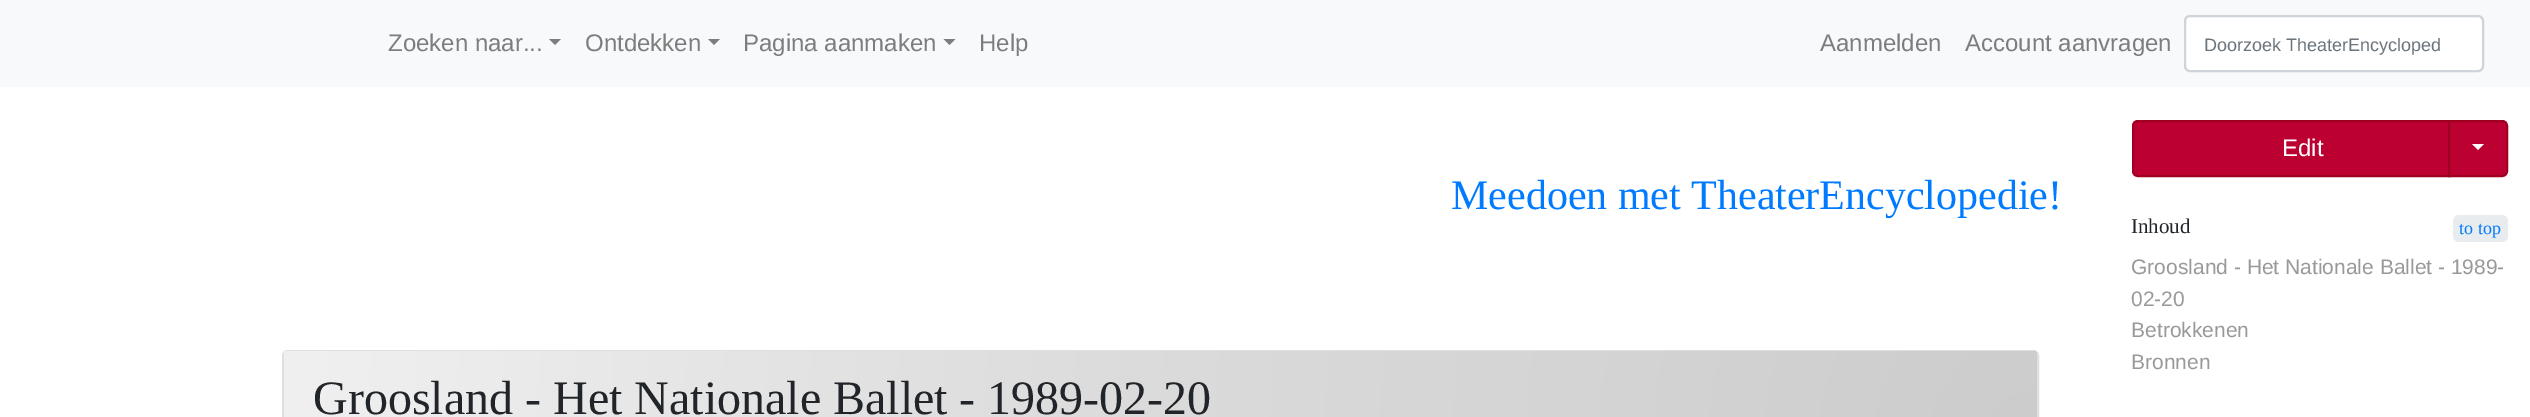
%!PS
<< /PageSize [2530 417] >> setpagedevice
/roundrect { 5 dict begin { /r /h /w /y /x } { exch def } forall
  x r add y moveto x w add y 2 copy h add r arct x w add y h add x 1 index r arct
  x y h add x y r arct x y 2 copy exch w add exch r arct closepath end } def
0 417 translate 1 -1 scale
4 setmiterlimit
1 setgray
0 0 2530 417 rectfill
0.973 0.976 0.98 setrgbcolor
0 0 2530 87 rectfill
/LiberationSans-Regular [24 0 0 -24 0 0] selectfont
0.486 0.49 0.49 setrgbcolor
388 51 moveto (Zoeken naar...) show
newpath 549 39 moveto 561 39 lineto 555 45 lineto closepath fill
585 51 moveto (Ontdekken) show
newpath 708 39 moveto 720 39 lineto 714 45 lineto closepath fill
743 51 moveto (Pagina aanmaken) show
newpath 943.5 39 moveto 955.5 39 lineto 949.5 45 lineto closepath fill
979 51 moveto (Help) show
1820 51 moveto (Aanmelden) show
1965 51 moveto (Account aanvragen) show
1 setgray
2185 16 298 55 5 roundrect gsave fill grestore
0.808 0.831 0.855 setrgbcolor
2 setlinewidth
stroke
/LiberationSans-Regular [18 0 0 -18 0 0] selectfont
0.424 0.459 0.49 setrgbcolor
2204 51 moveto (Doorzoek TheaterEncycloped) show
/LiberationSerif-Regular [42 0 0 -42 0 0] selectfont
0 0.482 1 setrgbcolor
1451 209 moveto (Meedoen met TheaterEncyclopedie!) show
0.875 setgray
283 351 1755 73 5 roundrect stroke
gsave newpath 289 351 moveto 2032 351 lineto 2035 351 2037 353 2037 356 curveto 2037 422 lineto 284 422 lineto 284 356 lineto 284 353 286 351 289 351 curveto closepath clip newpath 2037 444 translate 1756 1756 scale
<< /ShadingType 3 /ColorSpace /DeviceRGB /Coords [0 0 0 0 0 1] /Extend [true true] /Function << /FunctionType 3 /Domain [0 1] /Functions [<< /FunctionType 2 /Domain [0 1] /C0 [0.8 0.8 0.8] /C1 [0.859 0.859 0.859] /N 1 >> << /FunctionType 2 /Domain [0 1] /C0 [0.859 0.859 0.859] /C1 [0.941 0.941 0.941] /N 1 >>] /Bounds [0.5] /Encode [0 1 0 1] >> >> shfill grestore
/LiberationSerif-Regular [48 0 0 -48 0 0] selectfont
0.129 0.145 0.161 setrgbcolor
313 414 moveto (Groosland - Het Nationale Ballet - 1989-02-20) show
0.737 0 0.192 setrgbcolor
newpath 2138 121 moveto 2449 121 lineto 2449 176 lineto 2138 176 lineto 2135 176 2133 174 2133 171 curveto 2133 126 lineto 2133 123 2135 121 2138 121 curveto closepath gsave fill grestore
0.627 0 0.125 setrgbcolor
stroke
/LiberationSans-Regular [24 0 0 -24 0 0] selectfont
1 setgray
2282 156 moveto (Edit) show
0.737 0 0.192 setrgbcolor
newpath 2449 121 moveto 2502 121 lineto 2505 121 2507 123 2507 126 curveto 2507 171 lineto 2507 174 2505 176 2502 176 curveto 2449 176 lineto closepath gsave fill grestore
0.627 0 0.125 setrgbcolor
stroke
1 setgray
newpath 2472 144 moveto 2484 144 lineto 2478 150 lineto closepath fill
/LiberationSerif-Regular [21 0 0 -21 0 0] selectfont
0.129 0.145 0.161 setrgbcolor
2131 233 moveto (Inhoud) show
0.914 0.925 0.937 setrgbcolor
2453 215 55 27 6 roundrect fill
/LiberationSerif-Regular [18 0 0 -18 0 0] selectfont
0 0.482 1 setrgbcolor
2459 234 moveto (to top) show
/LiberationSans-Regular [21 0 0 -21 0 0] selectfont
0.6 setgray
2131 274 moveto (Groosland - Het Nationale Ballet - 1989-) show
2131 306 moveto (02-20) show
2131 337 moveto (Betrokkenen) show
2131 369 moveto (Bronnen) show
showpage
